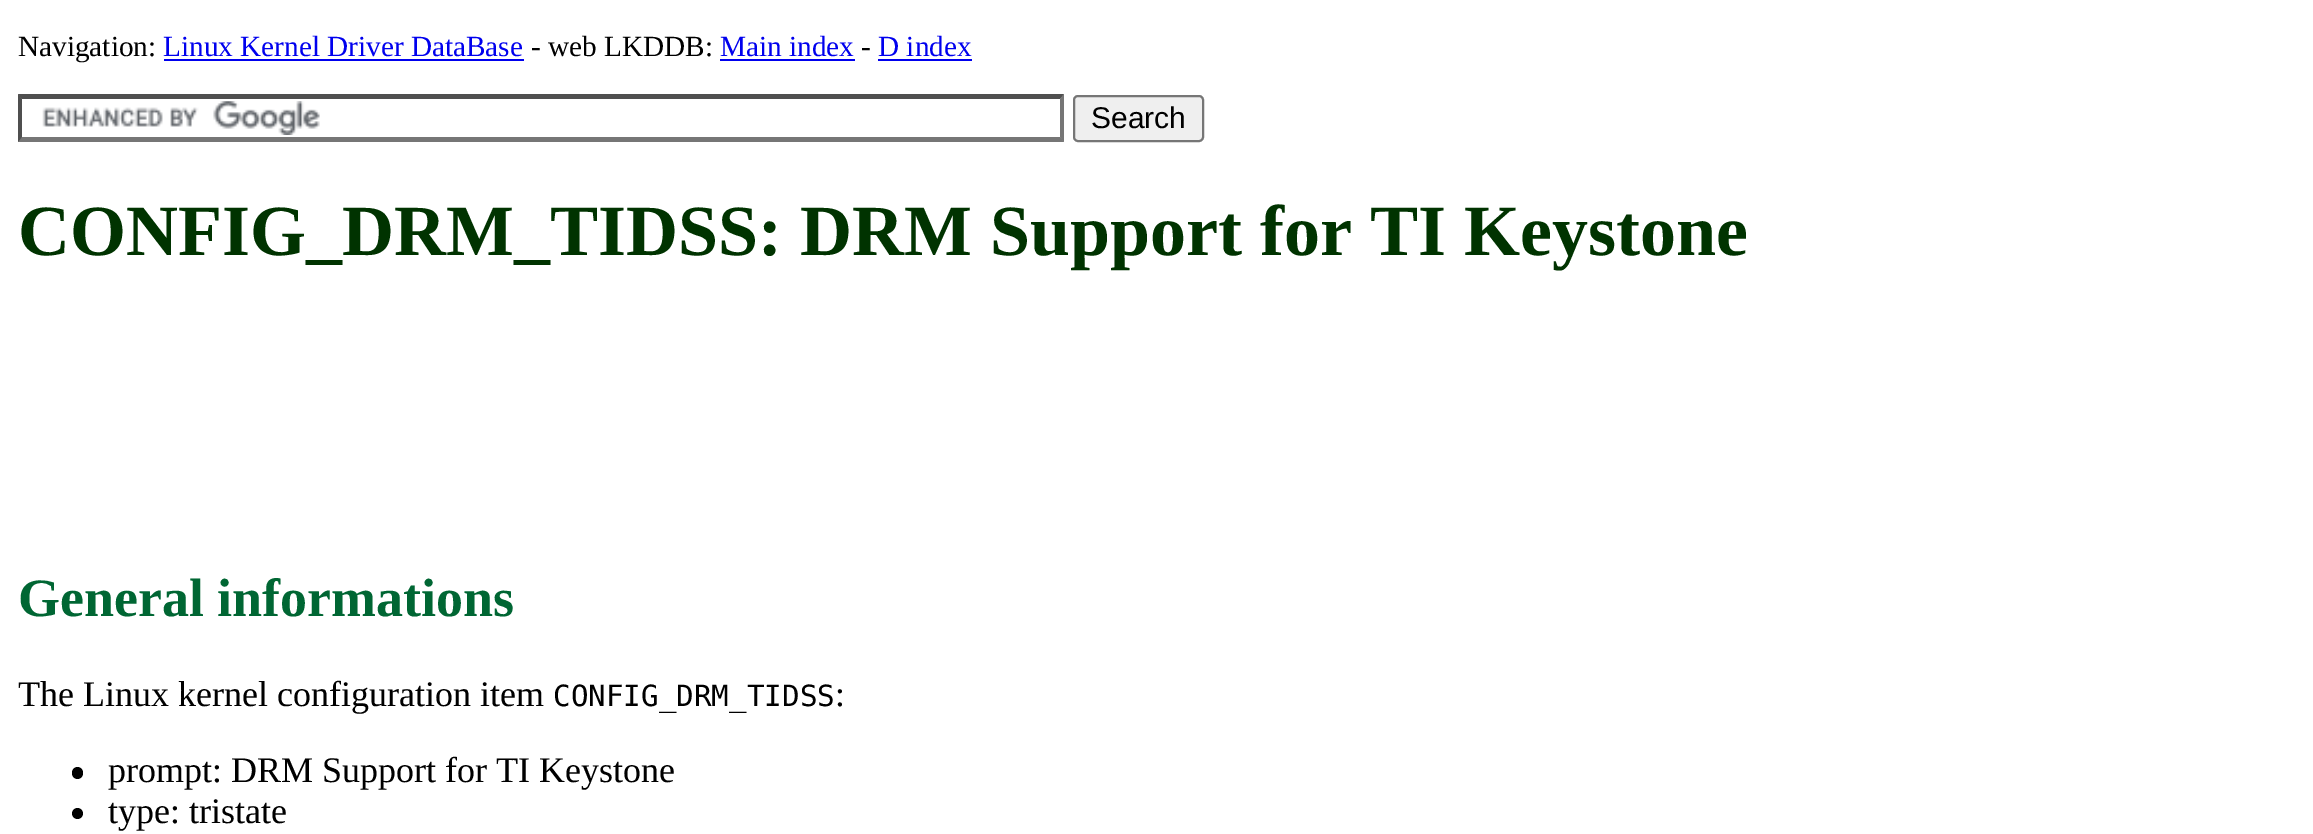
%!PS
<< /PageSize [2313 834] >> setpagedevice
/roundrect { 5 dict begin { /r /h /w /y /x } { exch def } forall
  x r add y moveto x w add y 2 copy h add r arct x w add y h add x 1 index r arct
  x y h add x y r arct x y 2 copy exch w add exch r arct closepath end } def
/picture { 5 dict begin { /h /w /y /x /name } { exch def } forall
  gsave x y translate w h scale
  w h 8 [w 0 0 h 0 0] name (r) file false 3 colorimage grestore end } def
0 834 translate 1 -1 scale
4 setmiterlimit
1 setgray
0 0 2313 834 rectfill
/LiberationSerif-Regular [29.25 0 0 -29.25 0 0] selectfont
0 setgray
18 56 moveto (Navigation:) show
0 0 0.933 setrgbcolor
163 56 moveto (Linux Kernel Driver DataBase) show
164 59 360 2 rectfill
0 setgray
531 56 moveto (- web LKDDB:) show
0 0 0.933 setrgbcolor
720 56 moveto (Main index) show
720 59 135 2 rectfill
0 setgray
861 56 moveto (-) show
0 0 0.933 setrgbcolor
878 56 moveto (D index) show
878 59 94 2 rectfill
(img1.rgb) 42 101 278 34 picture
0.31 setgray
newpath 18 94 moveto 1064 94 lineto 1060 99 lineto 22 99 lineto closepath fill
0.463 setgray
newpath 1064 94 moveto 1064 142 lineto 1060 137 lineto 1060 99 lineto closepath fill
newpath 1064 142 moveto 18 142 lineto 22 137 lineto 1060 137 lineto closepath fill
0.31 setgray
newpath 18 142 moveto 18 94 lineto 22 99 lineto 22 137 lineto closepath fill
0.937 setgray
1074 96 129 45 4 roundrect gsave fill grestore
0.463 setgray
2 setlinewidth
stroke
/LiberationSans-Regular [30 0 0 -30 0 0] selectfont
0 setgray
1091 128 moveto (Search) show
/LiberationSerif-Bold [72 0 0 -72 0 0] selectfont
0 0.2 0 setrgbcolor
18 255 moveto (CONFIG_DRM_TIDSS: DRM Support for TI Keystone) show
/LiberationSerif-Bold [54 0 0 -54 0 0] selectfont
0 0.4 0.2 setrgbcolor
18 616 moveto (General informations) show
/LiberationSerif-Regular [36 0 0 -36 0 0] selectfont
0 setgray
18 706 moveto (The Linux kernel configuration item) show
/DejaVuSansMono-Regular [29.25 0 0 -29.25 0 0] selectfont
553 706 moveto (CONFIG_DRM_TIDSS) show
/LiberationSerif-Regular [36 0 0 -36 0 0] selectfont
835 706 moveto (:) show
72 767 11 12 5.5 roundrect fill
108 782 moveto (prompt: DRM Support for TI Keystone) show
newpath 77.5 813.5 5.5 0 360 arc closepath fill
108 823 moveto (type: tristate) show
showpage
